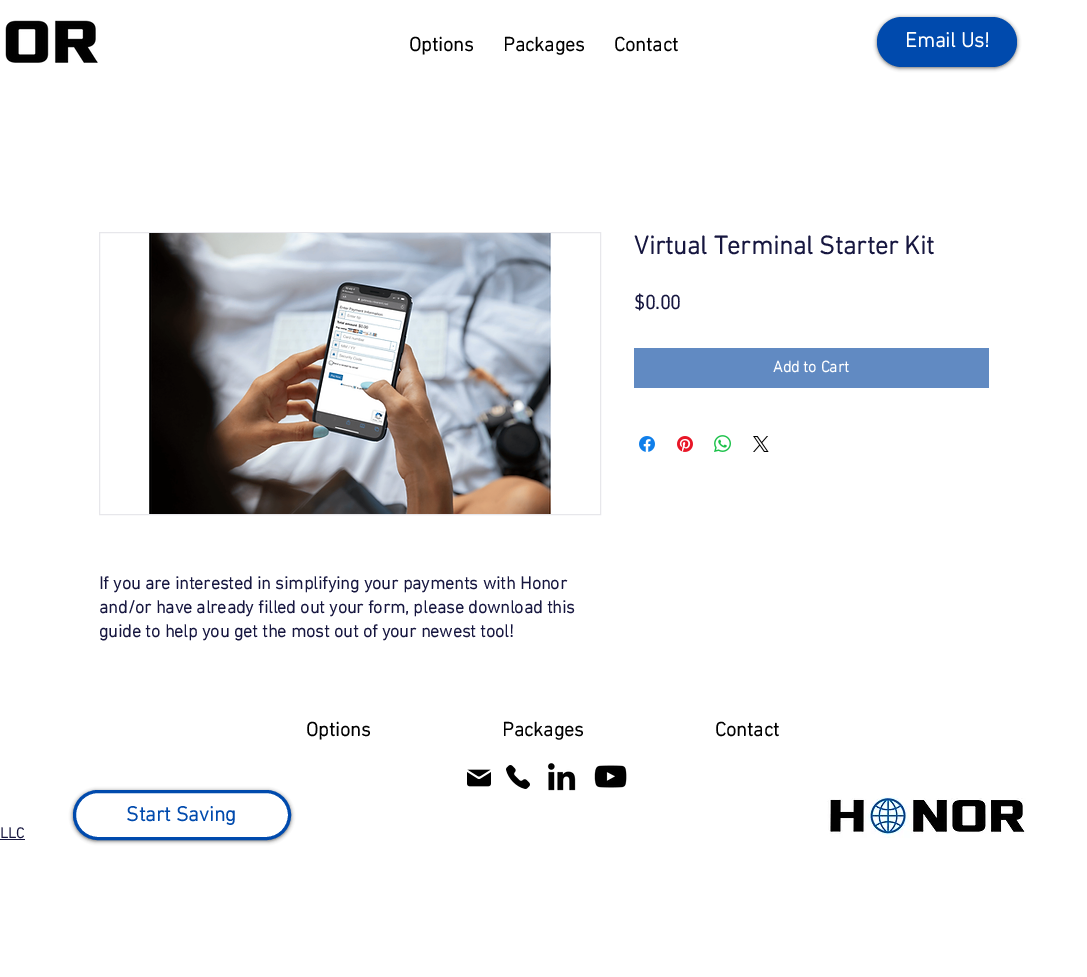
%!PS
<< /PageSize [1087 977] /PageUsesTransparency true >> setpagedevice
/alpha { dup .setfillconstantalpha .setstrokeconstantalpha } def
/roundrect { 5 dict begin { /r /h /w /y /x } { exch def } forall
  x r add y moveto x w add y 2 copy h add r arct x w add y h add x 1 index r arct
  x y h add x y r arct x y 2 copy exch w add exch r arct closepath end } def
/shadow { 12 dict begin { /a /b /q /h /w /y /x } { exch def } forall gsave /was 0 def
  9 -2 -9 { dup b mul 4 div /e exch def 1 sub .425 mul 2.718 exch exp 1 add a .99 .min exch div /now exch def
    1 1 now sub 1 was sub div sub alpha /was now def
    w h .min e 2 mul add 0 gt { x e sub y e sub w e 2 mul add h e 2 mul add
      q e add b .6 mul add w h .min 2 div e add .min 0 .max roundrect fill } if } for grestore end } def
/picture { 5 dict begin { /h /w /y /x /name } { exch def } forall
  gsave x y translate w h scale
  w h 8 [w 0 0 h 0 0] name (r) file false 3 colorimage grestore end } def
0 .pushpdf14devicefilter
0 977 translate 1 -1 scale
4 setmiterlimit
1 setgray
0 0 1087 977 rectfill
(img1.rgb) 5 20 93 43 picture
/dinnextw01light-Bold [20 0 0 -20 0 0] selectfont
0 setgray
409 51 moveto (Options) show
503 51 moveto (Packages) show
614 51 moveto (Contact) show
877 18 140 50 25 2 0.6 shadow
0 0.29 0.678 setrgbcolor
877 17 140 50 25 roundrect fill
/dinnextw01light-Bold [21 0 0 -21 0 0] selectfont
1 setgray
905 47 moveto (Email Us!) show
/dinnextw01light-Bold [26 0 0 -26 0 0] selectfont
0.086 0.086 0.247 setrgbcolor
634 254 moveto (Virtual Terminal Starter Kit) show
/dinnextw01light-Bold [20 0 0 -20 0 0] selectfont
634 309 moveto ($0.00) show
0.38 0.541 0.761 setrgbcolor
634 348 355 40 rectfill
/dinnextw01light-Bold [16 0 0 -16 0 0] selectfont
1 setgray
773 372 moveto (Add to Cart) show
(img2.rgb) 639 436 16 16 picture
(img3.rgb) 677 436 16 16 picture
(img4.rgb) 714 435 17 17 picture
(img5.rgb) 753 436 16 16 picture
0.906 0.906 0.922 setrgbcolor
99.5 232.5 501 282 rectstroke
(img6.rgb) 149 233 402 281 picture
/dinnextw01light-Bold [18 0 0 -18 0 0] selectfont
0.086 0.086 0.247 setrgbcolor
99 589 moveto (If you are interested in simplifying your payments with Honor) show
99 613 moveto (and/or have already filled out your form, please download this) show
99 637 moveto (guide to help you get the most out of your newest tool!) show
/dinnextw01light-Bold [20 0 0 -20 0 0] selectfont
0 setgray
306 736 moveto (Options) show
502 736 moveto (Packages) show
715 736 moveto (Contact) show
(img7.rgb) 467 769 24 18 picture
(img8.rgb) 506 765 24 24 picture
(img9.rgb) 547 763 29 28 picture
(img10.rgb) 594 765 33 23 picture
73 791 218 50 25 2 0.6 shadow
1 setgray
74.5 791.5 215 47 23.5 roundrect gsave fill grestore
0 0.29 0.678 setrgbcolor
3 setlinewidth
stroke
/dinnextw01light-Bold [21 0 0 -21 0 0] selectfont
126 821 moveto (Start Saving) show
(img11.rgb) 827 797 199 41 picture
/dinnextw01light-Bold [15 0 0 -15 0 0] selectfont
0.086 0.086 0.247 setrgbcolor
0 838 moveto (LLC) show
0 839 25 1 rectfill
.poppdf14devicefilter showpage
